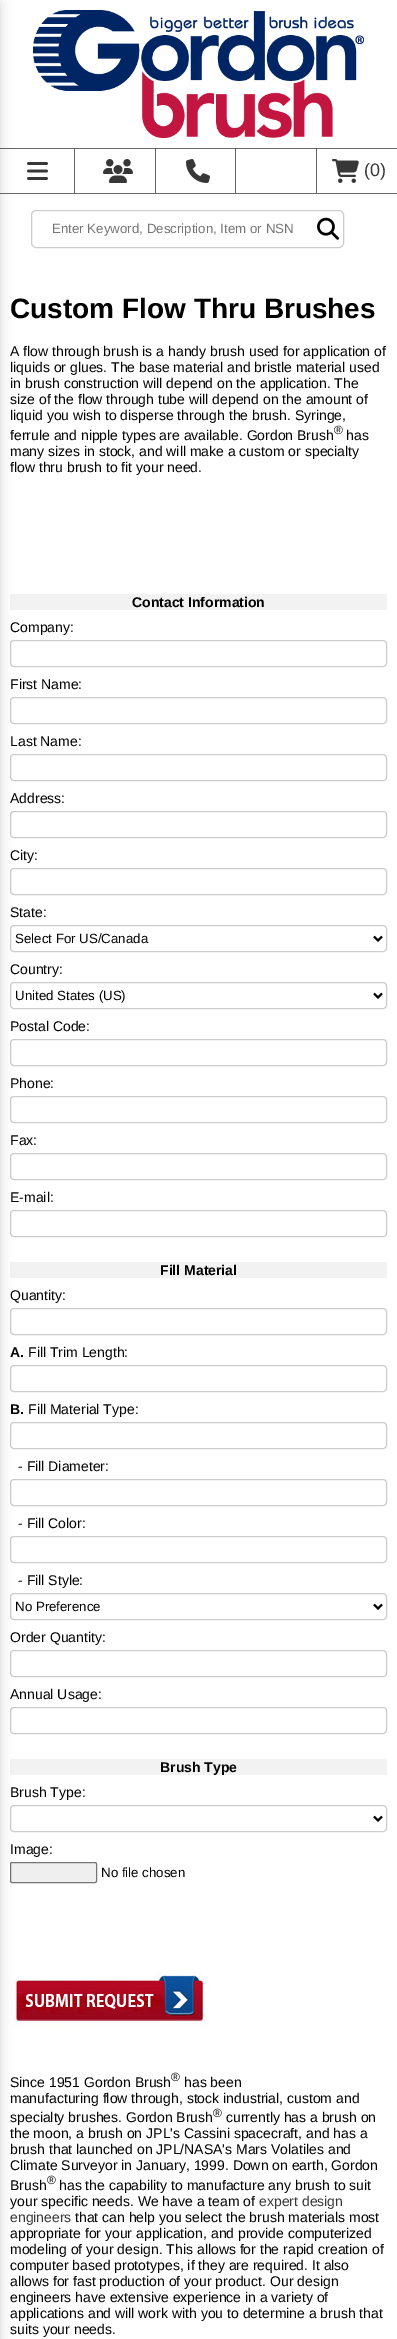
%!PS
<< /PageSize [397 2339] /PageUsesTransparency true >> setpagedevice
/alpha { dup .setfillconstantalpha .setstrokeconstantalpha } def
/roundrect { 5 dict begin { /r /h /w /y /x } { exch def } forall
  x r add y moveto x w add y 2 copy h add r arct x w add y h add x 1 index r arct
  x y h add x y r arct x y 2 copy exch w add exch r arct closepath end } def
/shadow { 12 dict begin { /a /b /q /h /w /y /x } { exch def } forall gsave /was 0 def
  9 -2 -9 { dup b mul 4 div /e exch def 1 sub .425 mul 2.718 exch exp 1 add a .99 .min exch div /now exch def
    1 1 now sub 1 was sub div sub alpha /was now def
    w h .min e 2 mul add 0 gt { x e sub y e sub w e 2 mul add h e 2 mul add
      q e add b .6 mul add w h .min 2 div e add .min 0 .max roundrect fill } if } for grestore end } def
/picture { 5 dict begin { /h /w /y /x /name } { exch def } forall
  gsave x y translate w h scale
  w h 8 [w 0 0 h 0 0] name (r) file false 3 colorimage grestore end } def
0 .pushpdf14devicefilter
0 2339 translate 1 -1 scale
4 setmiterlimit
1 setgray
0 0 397 2339 rectfill
0.404 setgray
0 193 397 1 rectfill
0 148 397 1 rectfill
0.949 setgray
10 594 377 16 rectfill
0.8 setgray
10.5 640.5 376 26 3.5 roundrect stroke
10.5 697.5 376 26 3.5 roundrect stroke
10.5 754.5 376 26 3.5 roundrect stroke
10.5 811.5 376 26 3.5 roundrect stroke
10.5 868.5 376 26 3.5 roundrect stroke
10.5 925.5 376 26 3.5 roundrect stroke
10.5 982.5 376 26 3.5 roundrect stroke
10.5 1039.5 376 26 3.5 roundrect stroke
10.5 1096.5 376 26 3.5 roundrect stroke
10.5 1153.5 376 26 3.5 roundrect stroke
10.5 1210.5 376 26 3.5 roundrect stroke
0.949 setgray
10 1262 377 16 rectfill
0.8 setgray
10.5 1308.5 376 26 3.5 roundrect stroke
10.5 1365.5 376 26 3.5 roundrect stroke
10.5 1422.5 376 26 3.5 roundrect stroke
10.5 1479.5 376 26 3.5 roundrect stroke
10.5 1536.5 376 26 3.5 roundrect stroke
10.5 1593.5 376 26 3.5 roundrect stroke
10.5 1650.5 376 26 3.5 roundrect stroke
10.5 1707.5 376 26 3.5 roundrect stroke
0.949 setgray
10 1759 377 16 rectfill
0.8 setgray
10.5 1805.5 376 26 3.5 roundrect stroke
0.937 setgray
10.5 1862.5 86 20 1.5 roundrect gsave fill grestore
0.463 setgray
stroke
(img7.rgb) 10 1971 200 57 picture
0 setgray
-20 3 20 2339 0 6.5 0.16 shadow
(img1.rgb) 33 10 331 128 picture
0.404 setgray
74 149 1 44 rectfill
(img2.rgb) 27 162 21 18 picture
155 149 1 44 rectfill
(img3.rgb) 103 159 30 24 picture
235 149 1 44 rectfill
(img4.rgb) 186 159 24 24 picture
316 149 1 44 rectfill
(img5.rgb) 332 159 27 24 picture
/LiberationSans-Regular [18 0 0 -18 0 0] selectfont
0.216 setgray
364 176 moveto (\(0\)) show
0.8 setgray
31.5 210.5 312 37 4.5 roundrect stroke
/LiberationSans-Regular [13.3 0 0 -13.3 0 0] selectfont
0.459 setgray
52 233 moveto (Enter Keyword, Description, Item or NSN) show
(img6.rgb) 317 217 22 23 picture
/LiberationSans-Bold [28 0 0 -28 0 0] selectfont
0 setgray
10 318 moveto (Custom Flow Thru Brushes) show
/LiberationSans-Regular [14 0 0 -14 0 0] selectfont
10 356 moveto (A flow through brush is a handy brush used for application of) show
10 372 moveto (liquids or glues. The base material and bristle material used) show
10 388 moveto (in brush construction will depend on the application. The) show
10 404 moveto (size of the flow through tube will depend on the amount of) show
10 420 moveto (liquid you wish to disperse through the brush. Syringe,) show
10 440 moveto (ferrule and nipple types are available. Gordon Brush) show
/LiberationSans-Regular [12 0 0 -12 0 0] selectfont
334 434 moveto (®) show
/LiberationSans-Regular [14 0 0 -14 0 0] selectfont
346 440 moveto (has) show
10 456 moveto (many sizes in stock, and will make a custom or specialty) show
10 472 moveto (flow thru brush to fit your need.) show
/LiberationSans-Bold [14 0 0 -14 0 0] selectfont
132 607 moveto (Contact Information) show
/LiberationSans-Regular [14 0 0 -14 0 0] selectfont
10 632 moveto (Company:) show
10 689 moveto (First Name:) show
10 746 moveto (Last Name:) show
10 803 moveto (Address:) show
10 860 moveto (City:) show
10 917 moveto (State:) show
2 setlinewidth
newpath 374 936.5 moveto 378 940.5 lineto 382 936.5 lineto stroke
/LiberationSans-Regular [13.3 0 0 -13.3 0 0] selectfont
15 943 moveto (Select For US/Canada) show
/LiberationSans-Regular [14 0 0 -14 0 0] selectfont
10 974 moveto (Country:) show
newpath 374 993.5 moveto 378 997.5 lineto 382 993.5 lineto stroke
/LiberationSans-Regular [13.3 0 0 -13.3 0 0] selectfont
15 1000 moveto (United States \(US\)) show
/LiberationSans-Regular [14 0 0 -14 0 0] selectfont
10 1031 moveto (Postal Code:) show
10 1088 moveto (Phone:) show
10 1145 moveto (Fax:) show
10 1202 moveto (E-mail:) show
/LiberationSans-Bold [14 0 0 -14 0 0] selectfont
160 1275 moveto (Fill Material) show
/LiberationSans-Regular [14 0 0 -14 0 0] selectfont
10 1300 moveto (Quantity:) show
/LiberationSans-Bold [14 0 0 -14 0 0] selectfont
10 1357 moveto (A.) show
/LiberationSans-Regular [14 0 0 -14 0 0] selectfont
28 1357 moveto (Fill Trim Length:) show
/LiberationSans-Bold [14 0 0 -14 0 0] selectfont
10 1414 moveto (B.) show
/LiberationSans-Regular [14 0 0 -14 0 0] selectfont
28 1414 moveto (Fill Material Type:) show
18 1471 moveto (- Fill Diameter:) show
18 1528 moveto (- Fill Color:) show
18 1585 moveto (- Fill Style:) show
newpath 374 1604.5 moveto 378 1608.5 lineto 382 1604.5 lineto stroke
/LiberationSans-Regular [13.3 0 0 -13.3 0 0] selectfont
15 1611 moveto (No Preference) show
/LiberationSans-Regular [14 0 0 -14 0 0] selectfont
10 1642 moveto (Order Quantity:) show
10 1699 moveto (Annual Usage:) show
/LiberationSans-Bold [14 0 0 -14 0 0] selectfont
160 1772 moveto (Brush Type) show
/LiberationSans-Regular [14 0 0 -14 0 0] selectfont
10 1797 moveto (Brush Type:) show
newpath 374 1816.5 moveto 378 1820.5 lineto 382 1816.5 lineto stroke
10 1854 moveto (Image:) show
/LiberationSans-Regular [13.3 0 0 -13.3 0 0] selectfont
101 1877 moveto (No file chosen) show
/LiberationSans-Regular [14 0 0 -14 0 0] selectfont
10 2087 moveto (Since 1951 Gordon Brush) show
/LiberationSans-Regular [12 0 0 -12 0 0] selectfont
171 2081 moveto (®) show
/LiberationSans-Regular [14 0 0 -14 0 0] selectfont
184 2087 moveto (has been) show
10 2103 moveto (manufacturing flow through, stock industrial, custom and) show
10 2122 moveto (specialty brushes. Gordon Brush) show
/LiberationSans-Regular [12 0 0 -12 0 0] selectfont
213 2117 moveto (®) show
/LiberationSans-Regular [14 0 0 -14 0 0] selectfont
226 2122 moveto (currently has a brush on) show
10 2138 moveto (the moon, a brush on JPL's Cassini spacecraft, and has a) show
10 2154 moveto (brush that launched on JPL/NASA's Mars Volatiles and) show
10 2170 moveto (Climate Surveyor in January, 1999. Down on earth, Gordon) show
10 2190 moveto (Brush) show
/LiberationSans-Regular [12 0 0 -12 0 0] selectfont
47 2184 moveto (®) show
/LiberationSans-Regular [14 0 0 -14 0 0] selectfont
59 2190 moveto (has the capability to manufacture any brush to suit) show
10 2206 moveto (your specific needs. We have a team of) show
0.216 setgray
259 2206 moveto (expert design) show
10 2222 moveto (engineers) show
0 setgray
75 2222 moveto (that can help you select the brush materials most) show
10 2238 moveto (appropriate for your application, and provide computerized) show
10 2254 moveto (modeling of your design. This allows for the rapid creation of) show
10 2270 moveto (computer based prototypes, if they are required. It also) show
10 2286 moveto (allows for fast production of your product. Our design) show
10 2302 moveto (engineers have extensive experience in a variety of) show
10 2318 moveto (applications and will work with you to determine a brush that) show
10 2334 moveto (suits your needs.) show
.poppdf14devicefilter showpage
